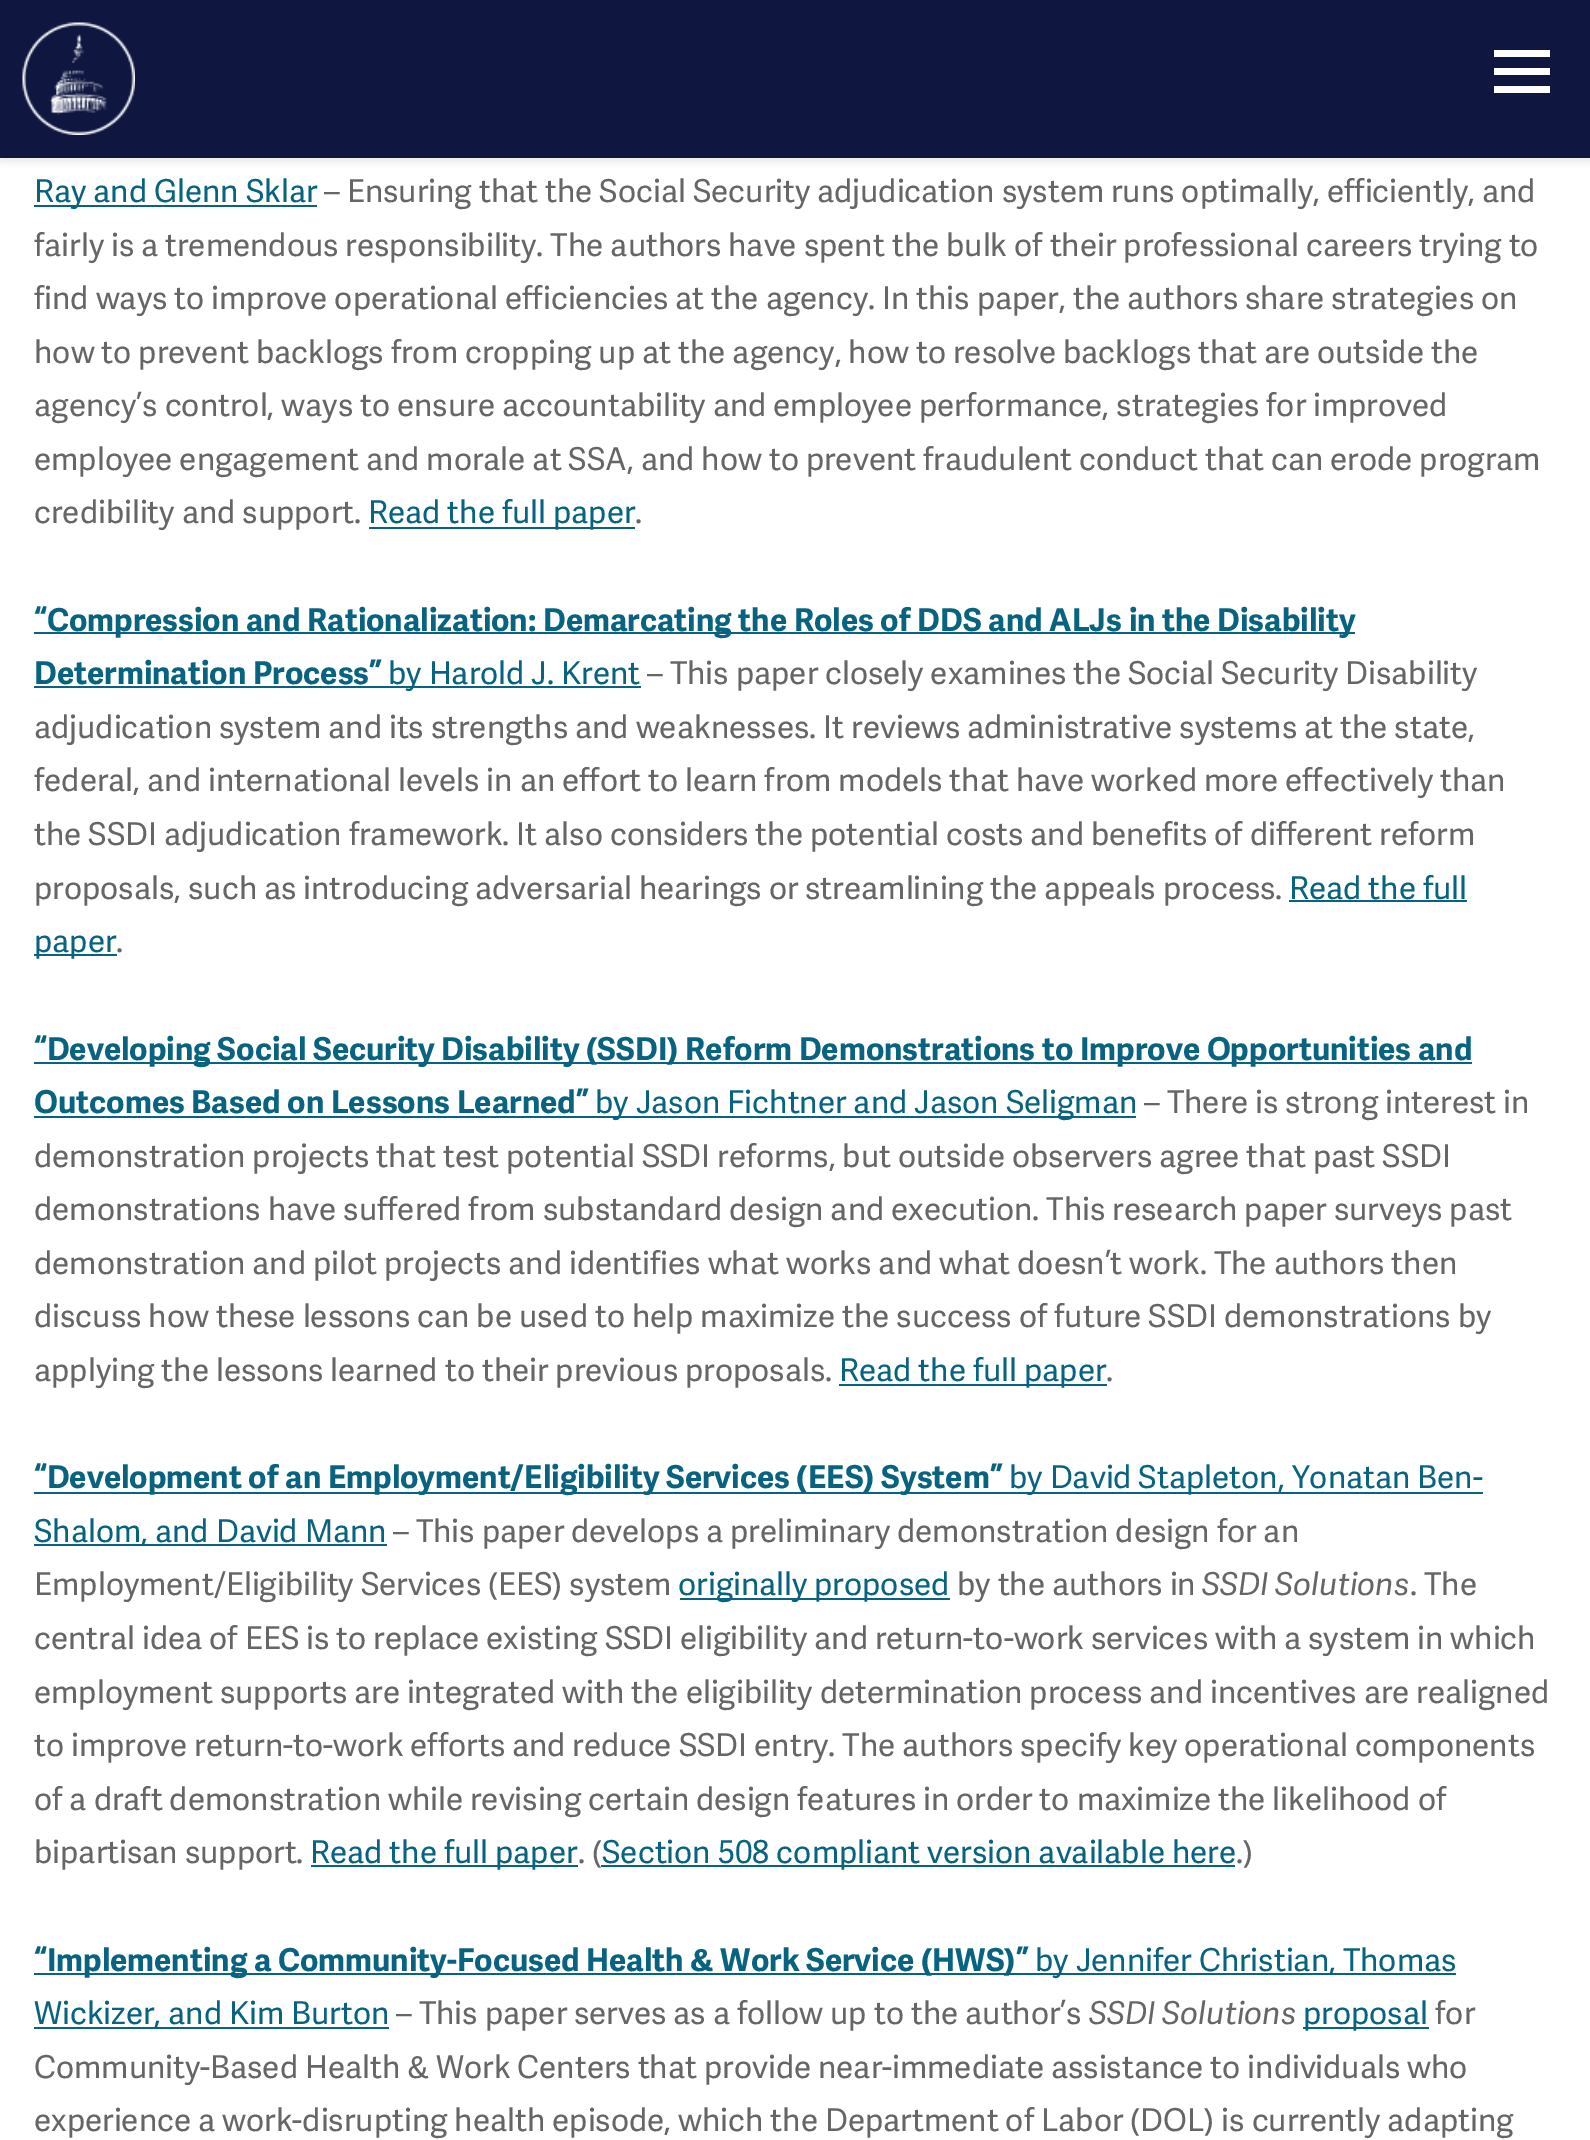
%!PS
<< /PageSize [1590 2140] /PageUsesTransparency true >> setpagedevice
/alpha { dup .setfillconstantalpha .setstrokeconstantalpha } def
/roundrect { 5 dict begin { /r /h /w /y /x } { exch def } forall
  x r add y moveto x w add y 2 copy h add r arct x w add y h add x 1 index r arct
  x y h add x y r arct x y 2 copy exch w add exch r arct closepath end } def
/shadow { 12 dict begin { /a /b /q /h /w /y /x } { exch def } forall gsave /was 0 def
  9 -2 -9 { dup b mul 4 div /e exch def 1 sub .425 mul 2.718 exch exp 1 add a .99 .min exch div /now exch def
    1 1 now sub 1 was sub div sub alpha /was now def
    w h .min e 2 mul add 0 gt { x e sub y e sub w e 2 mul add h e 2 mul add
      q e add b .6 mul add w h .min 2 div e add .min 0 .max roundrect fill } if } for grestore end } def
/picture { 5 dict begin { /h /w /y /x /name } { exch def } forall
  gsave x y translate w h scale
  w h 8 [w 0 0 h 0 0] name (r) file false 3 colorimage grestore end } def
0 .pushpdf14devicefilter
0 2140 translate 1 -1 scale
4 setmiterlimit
1 setgray
0 0 1590 2140 rectfill
0.133 setgray
0 5 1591 157 0 3.5 0.1 shadow
0.059 0.09 0.255 setrgbcolor
0 0 1590 158 rectfill
(img1.rgb) 22 22 113 113 picture
1 setgray
1494 68 56 7 rectfill
1494 50 56 7 rectfill
1494 86 56 7 rectfill
0.031 0.388 0.506 setrgbcolor
34 205 283 2 rectfill
/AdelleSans-Regular [31.5 0 0 -31.5 0 0] selectfont
34 202 moveto (Ray and Glenn Sklar) show
0.4 setgray
324 202 moveto (– Ensuring that the Social Security adjudication system runs optimally, efficiently, and) show
34 256 moveto (fairly is a tremendous responsibility. The authors have spent the bulk of their professional careers trying to) show
34 309 moveto (find ways to improve operational efficiencies at the agency. In this paper, the authors share strategies on) show
34 363 moveto (how to prevent backlogs from cropping up at the agency, how to resolve backlogs that are outside the) show
34 416 moveto (agency’s control, ways to ensure accountability and employee performance, strategies for improved) show
34 470 moveto (employee engagement and morale at SSA, and how to prevent fraudulent conduct that can erode program) show
34 523 moveto (credibility and support.) show
0.031 0.388 0.506 setrgbcolor
369 527 266 2 rectfill
368 523 moveto (Read the full paper) show
0.4 setgray
635 523 moveto (.) show
0.031 0.388 0.506 setrgbcolor
34 632 1321 2 rectfill
/AdelleSans-Bold [31.5 0 0 -31.5 0 0] selectfont
34 631 moveto (“Compression and Rationalization: Demarcating the Roles of DDS and ALJs in the Disability) show
34 684 moveto (Determination Process”) show
34 686 607 2 rectfill
/AdelleSans-Regular [31.5 0 0 -31.5 0 0] selectfont
388 684 moveto (by Harold J. Krent) show
0.4 setgray
647 684 moveto (– This paper closely examines the Social Security Disability) show
34 738 moveto (adjudication system and its strengths and weaknesses. It reviews administrative systems at the state,) show
34 791 moveto (federal, and international levels in an effort to learn from models that have worked more effectively than) show
34 845 moveto (the SSDI adjudication framework. It also considers the potential costs and benefits of different reform) show
34 899 moveto (proposals, such as introducing adversarial hearings or streamlining the appeals process.) show
0.031 0.388 0.506 setrgbcolor
1289 899 moveto (Read the full) show
1289 900 178 2 rectfill
34 954 83 2 rectfill
34 952 moveto (paper) show
0.4 setgray
116 952 moveto (.) show
0.031 0.388 0.506 setrgbcolor
34 1062 1438 2 rectfill
/AdelleSans-Bold [31.5 0 0 -31.5 0 0] selectfont
34 1060 moveto (“Developing Social Security Disability \(SSDI\) Reform Demonstrations to Improve Opportunities and) show
34 1113 moveto (Outcomes Based on Lessons Learned”) show
34 1116 1102 2 rectfill
/AdelleSans-Regular [31.5 0 0 -31.5 0 0] selectfont
595 1113 moveto (by Jason Fichtner and Jason Seligman) show
0.4 setgray
1144 1113 moveto (– There is strong interest in) show
34 1167 moveto (demonstration projects that test potential SSDI reforms, but outside observers agree that past SSDI) show
34 1220 moveto (demonstrations have suffered from substandard design and execution. This research paper surveys past) show
34 1274 moveto (demonstration and pilot projects and identifies what works and what doesn’t work. The authors then) show
34 1327 moveto (discuss how these lessons can be used to help maximize the success of future SSDI demonstrations by) show
34 1381 moveto (applying the lessons learned to their previous proposals.) show
0.031 0.388 0.506 setrgbcolor
839 1384 268 2 rectfill
839 1381 moveto (Read the full paper) show
0.4 setgray
1106 1381 moveto (.) show
0.031 0.388 0.506 setrgbcolor
34 1492 967 2 rectfill
/AdelleSans-Bold [31.5 0 0 -31.5 0 0] selectfont
34 1488 moveto (“Development of an Employment/Eligibility Services \(EES\) System”) show
1001 1492 482 2 rectfill
/AdelleSans-Regular [31.5 0 0 -31.5 0 0] selectfont
1009 1488 moveto (by David Stapleton, Yonatan Ben-) show
34 1544 353 2 rectfill
34 1542 moveto (Shalom, and David Mann) show
0.4 setgray
393 1542 moveto (– This paper develops a preliminary demonstration design for an) show
34 1595 moveto (Employment/Eligibility Services \(EES\) system) show
0.031 0.388 0.506 setrgbcolor
680 1598 270 2 rectfill
678 1595 moveto (originally proposed) show
0.4 setgray
957 1595 moveto (by the authors in) show
/AdelleSans-Italic [31.5 0 0 -31.5 0 0] selectfont
1202 1595 moveto (SSDI Solutions) show
/AdelleSans-Regular [31.5 0 0 -31.5 0 0] selectfont
1410 1595 moveto (. The) show
34 1649 moveto (central idea of EES is to replace existing SSDI eligibility and return-to-work services with a system in which) show
34 1703 moveto (employment supports are integrated with the eligibility determination process and incentives are realigned) show
34 1756 moveto (to improve return-to-work efforts and reduce SSDI entry. The authors specify key operational components) show
34 1810 moveto (of a draft demonstration while revising certain design features in order to maximize the likelihood of) show
34 1863 moveto (bipartisan support.) show
0.031 0.388 0.506 setrgbcolor
311 1865 267 2 rectfill
310 1863 moveto (Read the full paper) show
0.4 setgray
578 1863 moveto (. \() show
0.031 0.388 0.506 setrgbcolor
601 1865 634 2 rectfill
602 1863 moveto (Section 508 compliant version available here) show
0.4 setgray
1236 1863 moveto (.\)) show
0.031 0.388 0.506 setrgbcolor
34 1973 994 2 rectfill
/AdelleSans-Bold [31.5 0 0 -31.5 0 0] selectfont
34 1971 moveto (“Implementing a Community-Focused Health & Work Service \(HWS\)”) show
1028 1973 428 2 rectfill
/AdelleSans-Regular [31.5 0 0 -31.5 0 0] selectfont
1035 1971 moveto (by Jennifer Christian, Thomas) show
34 2027 355 2 rectfill
34 2024 moveto (Wickizer, and Kim Burton) show
0.4 setgray
396 2024 moveto (– This paper serves as a follow up to the author’s) show
/AdelleSans-Italic [31.5 0 0 -31.5 0 0] selectfont
1089 2024 moveto (SSDI Solutions) show
0.031 0.388 0.506 setrgbcolor
1303 2027 126 2 rectfill
/AdelleSans-Regular [31.5 0 0 -31.5 0 0] selectfont
1303 2024 moveto (proposal) show
0.4 setgray
1435 2024 moveto (for) show
34 2078 moveto (Community-Based Health & Work Centers that provide near-immediate assistance to individuals who) show
34 2131 moveto (experience a work-disrupting health episode, which the Department of Labor \(DOL\) is currently adapting) show
.poppdf14devicefilter showpage
